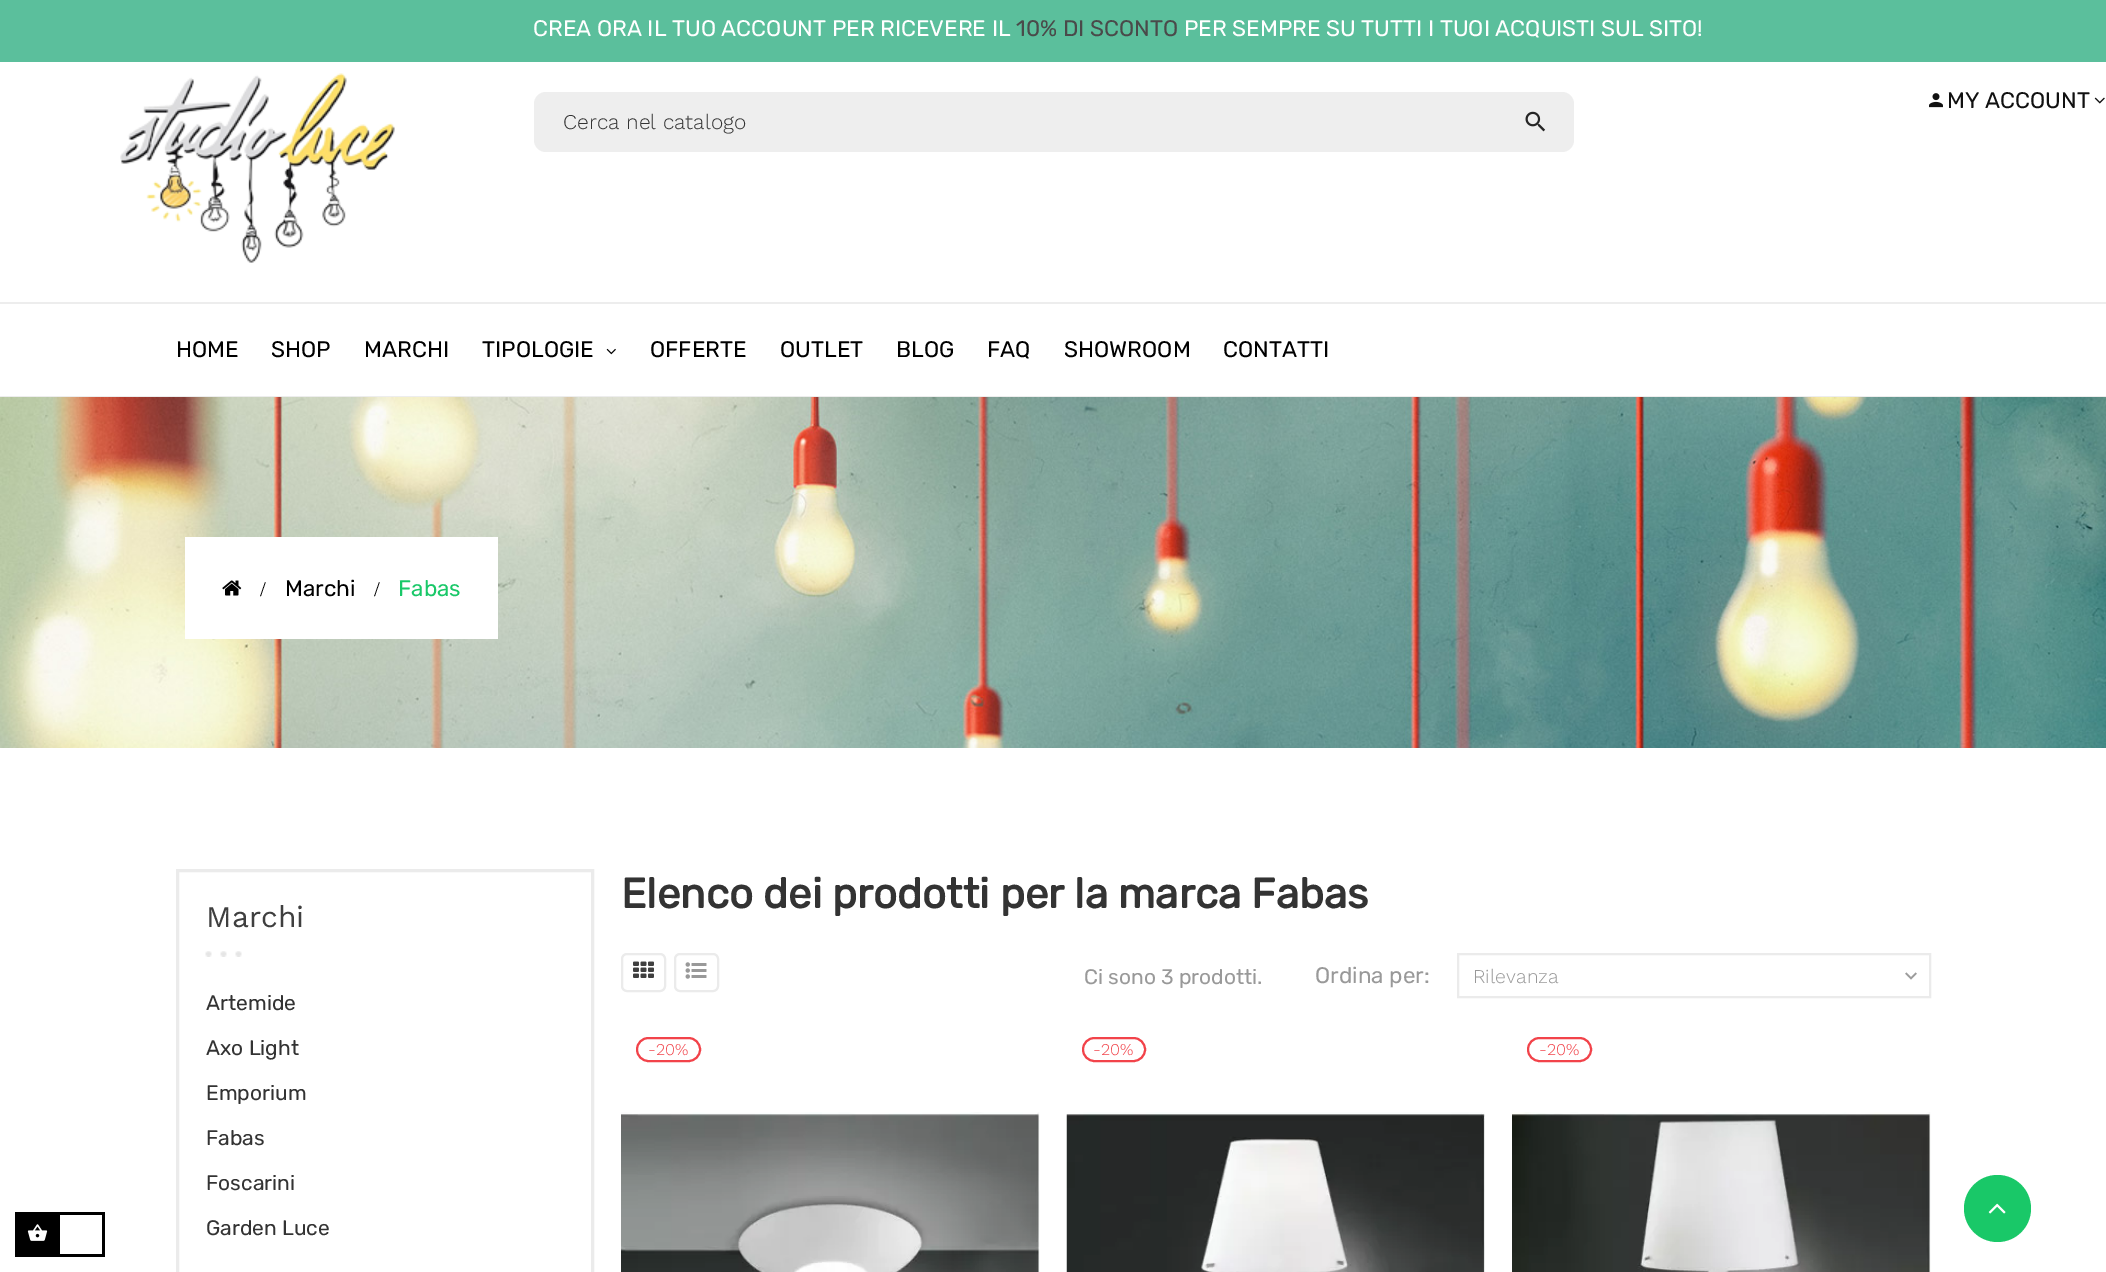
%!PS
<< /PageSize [2106 1272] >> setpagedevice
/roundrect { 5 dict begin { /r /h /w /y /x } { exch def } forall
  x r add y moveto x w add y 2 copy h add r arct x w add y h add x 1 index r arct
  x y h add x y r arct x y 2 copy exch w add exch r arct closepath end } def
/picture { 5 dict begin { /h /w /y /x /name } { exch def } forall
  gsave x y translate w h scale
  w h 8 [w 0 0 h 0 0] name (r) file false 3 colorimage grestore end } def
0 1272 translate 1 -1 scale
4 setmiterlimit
1 setgray
0 0 2106 1272 rectfill
0 setgray
15 1212 90 45 rectfill
(img1.rgb) 27 1224 21 17 picture
1 setgray
60 1215 42 39 rectfill
0.357 0.749 0.612 setrgbcolor
0 0 2106 62 rectfill
/Rubik-Light [22.5 0 0 -22.5 0 0] selectfont
1 setgray
533 36 moveto (CREA ORA IL TUO ACCOUNT PER RICEVERE IL) show
0.29 setgray
1016 36 moveto (10% DI SCONTO) show
1 setgray
1184 36 moveto (PER SEMPRE SU TUTTI I TUOI ACQUISTI SUL SITO!) show
(img2.rgb) 120 73 275 190 picture
(img3.rgb) 1929 93 14 15 picture
0.067 setgray
1947 108 moveto (MY ACCOUNT) show
(img4.rgb) 2094 97 11 7 picture
0.933 setgray
534 92 1040 60 12 roundrect fill
/WorkSans-Light [21 0 0 -21 0 0] selectfont
0.2 setgray
563 129 moveto (Cerca nel catalogo) show
(img5.rgb) 1525 111 21 21 picture
0.929 setgray
0 302 2106 2 rectfill
0 396 2106 1 rectfill
/Rubik-Light [22.5 0 0 -22.5 0 0] selectfont
0 setgray
176 357 moveto (HOME) show
271 357 moveto (SHOP) show
364 357 moveto (MARCHI) show
482 357 moveto (TIPOLOGIE) show
(img6.rgb) 606 348 10 7 picture
650 357 moveto (OFFERTE) show
780 357 moveto (OUTLET) show
896 357 moveto (BLOG) show
987 357 moveto (FAQ) show
1064 357 moveto (SHOWROOM) show
1223 357 moveto (CONTATTI) show
(img7.rgb) 0 397 2106 351 picture
1 setgray
185 537 313 102 rectfill
(img8.rgb) 222 580 20 16 picture
/LiberationSerif-Regular [21 0 0 -21 0 0] selectfont
0 setgray
260 596 moveto (/) show
/Rubik-Light [22.5 0 0 -22.5 0 0] selectfont
285 596 moveto (Marchi) show
/LiberationSerif-Regular [21 0 0 -21 0 0] selectfont
374 596 moveto (/) show
/Rubik-Light [22.5 0 0 -22.5 0 0] selectfont
0.098 0.784 0.408 setrgbcolor
398 596 moveto (Fabas) show
0.922 setgray
3 setlinewidth
177.5 870.5 415 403 rectstroke
/WorkSans-Regular [30 0 0 -30 0 0] selectfont
0.247 setgray
206 927 moveto (Marchi) show
(img9.rgb) 205 951 37 6 picture
/Rubik-Light [21 0 0 -21 0 0] selectfont
0.2 setgray
206 1010 moveto (Artemide) show
206 1055 moveto (Axo Light) show
206 1100 moveto (Emporium) show
206 1145 moveto (Fabas) show
206 1190 moveto (Foscarini) show
206 1235 moveto (Garden Luce) show
/Rubik-Bold [42 0 0 -42 0 0] selectfont
621 908 moveto (Elenco dei prodotti per la marca Fabas) show
0.922 setgray
2 setlinewidth
622 954 43 37 5 roundrect stroke
(img10.rgb) 633 961 21 17 picture
675 954 43 37 5 roundrect stroke
(img11.rgb) 685 962 22 17 picture
/Rubik-Light [21 0 0 -21 0 0] selectfont
0.6 setgray
1084 984 moveto (Ci sono 3 prodotti.) show
/Rubik-Light [22.5 0 0 -22.5 0 0] selectfont
1315 983 moveto (Ordina per:) show
0.922 setgray
1458 954 472 43 rectstroke
/WorkSans-Light [19.5 0 0 -19.5 0 0] selectfont
0.6 setgray
1473 983 moveto (Rilevanza) show
(img12.rgb) 1905 972 12 8 picture
0.949 0.263 0.29 setrgbcolor
637 1038 63 23 11.5 roundrect stroke
/WorkSans-Light [16.5 0 0 -16.5 0 0] selectfont
648 1055 moveto (-20%) show
(img13.rgb) 621 1112 419 160 picture
1083 1038 62 23 11.5 roundrect stroke
1093 1055 moveto (-20%) show
(img14.rgb) 1066 1112 419 160 picture
1528 1038 63 23 11.5 roundrect stroke
1539 1055 moveto (-20%) show
(img15.rgb) 1512 1112 419 160 picture
0.098 0.784 0.408 setrgbcolor
newpath 1997.5 1208.5 33.5 0 360 arc closepath fill
(img16.rgb) 1988 1203 18 11 picture
showpage
